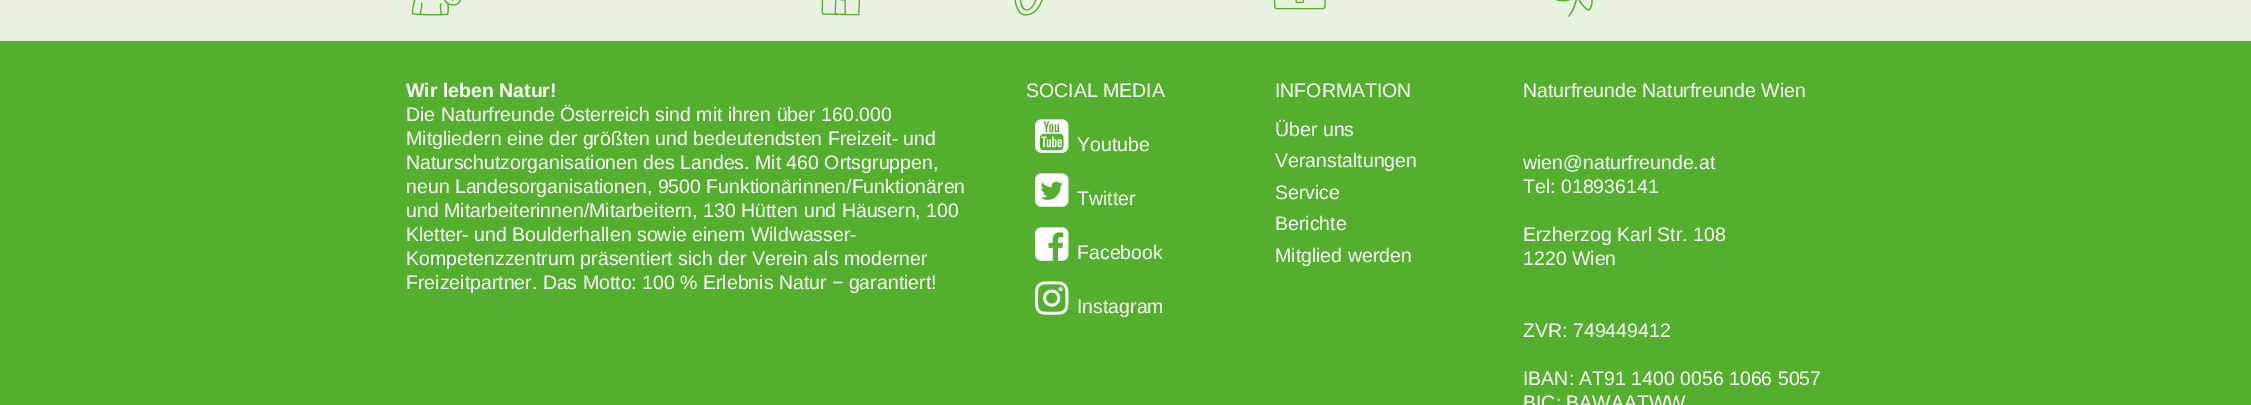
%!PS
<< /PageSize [2251 405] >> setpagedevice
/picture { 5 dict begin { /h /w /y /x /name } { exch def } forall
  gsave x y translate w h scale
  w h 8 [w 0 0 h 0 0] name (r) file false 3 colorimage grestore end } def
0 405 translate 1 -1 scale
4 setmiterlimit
0.914 0.949 0.882 setrgbcolor
0 0 2251 405 rectfill
(img1.rgb) 411 0 51 16 picture
(img2.rgb) 821 0 40 16 picture
(img3.rgb) 1014 0 29 16 picture
(img4.rgb) 1273 0 53 10 picture
(img5.rgb) 1556 0 37 17 picture
0.329 0.686 0.18 setrgbcolor
0 41 2251 364 rectfill
/LiberationSans-Bold [19.5 0 0 -19.5 0 0] selectfont
1 setgray
406 97 moveto (Wir leben Natur!) show
/LiberationSans-Regular [19.5 0 0 -19.5 0 0] selectfont
406 121 moveto (Die Naturfreunde Österreich sind mit ihren über 160.000) show
406 145 moveto (Mitgliedern eine der größten und bedeutendsten Freizeit- und) show
406 169 moveto (Naturschutzorganisationen des Landes. Mit 460 Ortsgruppen,) show
406 193 moveto (neun Landesorganisationen, 9500 Funktionärinnen/Funktionären) show
406 217 moveto (und Mitarbeiterinnen/Mitarbeitern, 130 Hütten und Häusern, 100) show
406 241 moveto (Kletter- und Boulderhallen sowie einem Wildwasser-) show
406 265 moveto (Kompetenzzentrum präsentiert sich der Verein als moderner) show
406 289 moveto (Freizeitpartner. Das Motto: 100 % Erlebnis Natur − garantiert!) show
1026 97 moveto (SOCIAL MEDIA) show
(img6.rgb) 1035 119 34 34 picture
1077 151 moveto (Youtube) show
(img7.rgb) 1035 173 34 34 picture
1077 205 moveto (Twitter) show
(img8.rgb) 1035 227 34 34 picture
1077 259 moveto (Facebook) show
(img9.rgb) 1035 281 34 34 picture
1077 313 moveto (Instagram) show
1275 97 moveto (INFORMATION) show
1275 136 moveto (Über uns) show
1275 167 moveto (Veranstaltungen) show
1275 199 moveto (Service) show
1275 230 moveto (Berichte) show
1275 262 moveto (Mitglied werden) show
1523 97 moveto (Naturfreunde Naturfreunde Wien) show
1523 169 moveto (wien@naturfreunde.at) show
1523 193 moveto (Tel: 018936141) show
1523 241 moveto (Erzherzog Karl Str. 108) show
1523 265 moveto (1220 Wien) show
1523 337 moveto (ZVR: 749449412) show
1523 385 moveto (IBAN: AT91 1400 0056 1066 5057) show
1523 409 moveto (BIC: BAWAATWW) show
showpage
